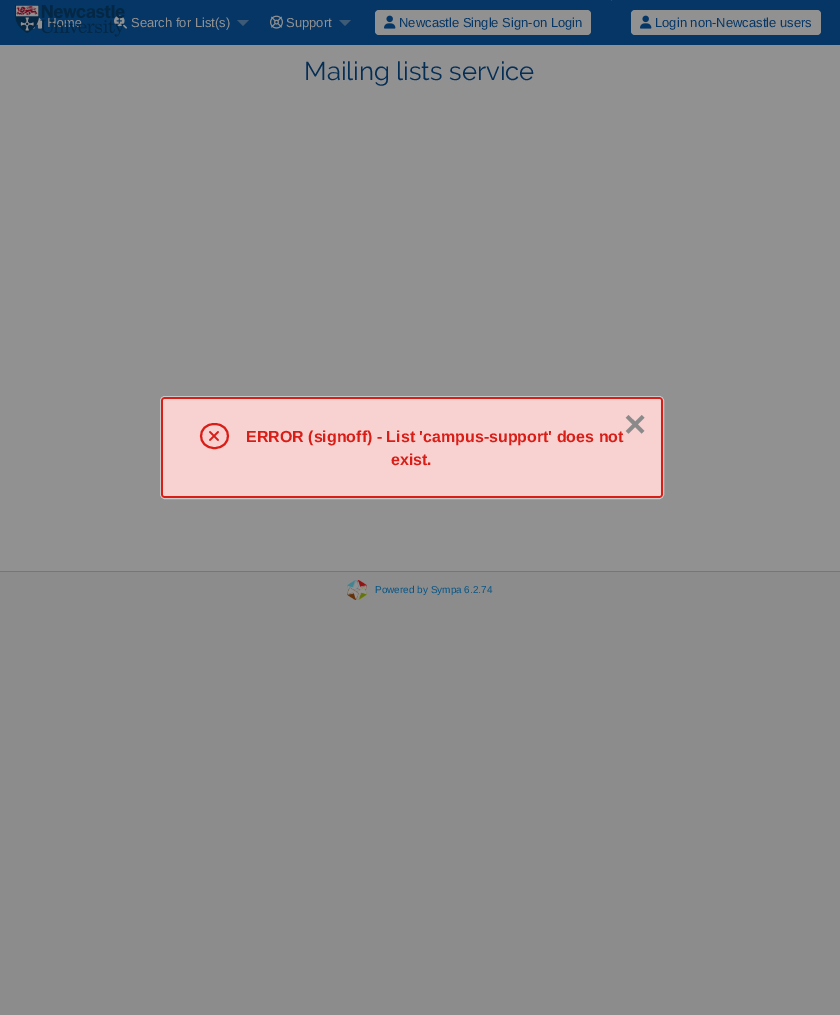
%!PS
<< /PageSize [840 1015] /PageUsesTransparency true >> setpagedevice
/alpha { dup .setfillconstantalpha .setstrokeconstantalpha } def
/roundrect { 5 dict begin { /r /h /w /y /x } { exch def } forall
  x r add y moveto x w add y 2 copy h add r arct x w add y h add x 1 index r arct
  x y h add x y r arct x y 2 copy exch w add exch r arct closepath end } def
/picture { 5 dict begin { /h /w /y /x /name } { exch def } forall
  gsave x y translate w h scale
  w h 8 [w 0 0 h 0 0] name (r) file false 3 colorimage grestore end } def
0 .pushpdf14devicefilter
0 1015 translate 1 -1 scale
4 setmiterlimit
0.549 setgray
0 0 840 1015 rectfill
0.02 0.212 0.4 setrgbcolor
0 0 840 45 rectfill
(img2.rgb) 32 17 11 12 picture
/LiberationSans-Regular [13 0 0 -13 0 0] selectfont
0.569 setgray
47 27 moveto (Home) show
(img3.rgb) 114 15 13 14 picture
(img1.rgb) 15 5 110 32 picture
0.02 0.329 0.522 setrgbcolor
611 0 1 1 rectfill
0.569 setgray
131 27 moveto (Search for List\(s\)) show
0.239 0.353 0.467 setrgbcolor
newpath 237 20 moveto 249 20 lineto 243 26 lineto closepath fill
(img4.rgb) 270 15 13 14 picture
0.569 setgray
286 27 moveto (Support) show
0.239 0.353 0.467 setrgbcolor
newpath 339 20 moveto 351 20 lineto 345 26 lineto closepath fill
0.569 setgray
375 10 216 25 4 roundrect fill
(img5.rgb) 384 15 12 14 picture
0.02 0.212 0.4 setrgbcolor
399 27 moveto (Newcastle Single Sign-on Login) show
0.569 setgray
631 10 190 25 4 roundrect fill
(img5.rgb) 640 15 12 14 picture
0.02 0.212 0.4 setrgbcolor
655 27 moveto (Login non-Newcastle users) show
0.569 setgray
0 45 840 526 rectfill
/Raleway-Regular [25.75 0 0 -25.75 0 0] selectfont
0.02 0.18 0.333 setrgbcolor
304 80 moveto (Mailing lists service) show
1 setgray
160.5 396.5 503 102 4.5 roundrect gsave fill grestore
0.792 setgray
stroke
0.2 alpha
0.851 0.118 0.094 setrgbcolor
161 397 502 101 4 roundrect fill
1 alpha
newpath 165 397 moveto 163 397 161 399 161 401 curveto 161 494 lineto 161 496 163 498 165 498 curveto 659 498 lineto 661 498 663 496 663 494 curveto 663 401 lineto 663 399 661 397 659 397 curveto closepath 164 399 moveto 163 399 163 399 163 400 curveto 163 495 lineto 163 496 163 496 164 496 curveto 660 496 lineto 661 496 661 496 661 495 curveto 661 400 lineto 661 399 661 399 660 399 curveto closepath eofill
/LiberationSans-Bold [38 0 0 -38 0 0] selectfont
0.541 setgray
624 437 moveto (×) show
0.851 0.118 0.094 setrgbcolor
2 setlinewidth
newpath 214.5 424 moveto 232.5 424 232.5 448 214.5 448 curveto 196.5 448 196.5 424 214.5 424 curveto closepath stroke
(img6.rgb) 209 431 10 10 picture
/LiberationSans-Bold [16 0 0 -16 0 0] selectfont
246 442 moveto (ERROR \(signoff\) - List 'campus-support' does not) show
391 465 moveto (exist.) show
0.431 0.471 0.502 setrgbcolor
0 571 840 1 rectfill
(img7.rgb) 347 580 20 20 picture
/LiberationSans-Regular [10 0 0 -10 0 0] selectfont
0.02 0.329 0.522 setrgbcolor
375 593 moveto (Powered by Sympa 6.2.74) show
.poppdf14devicefilter showpage
